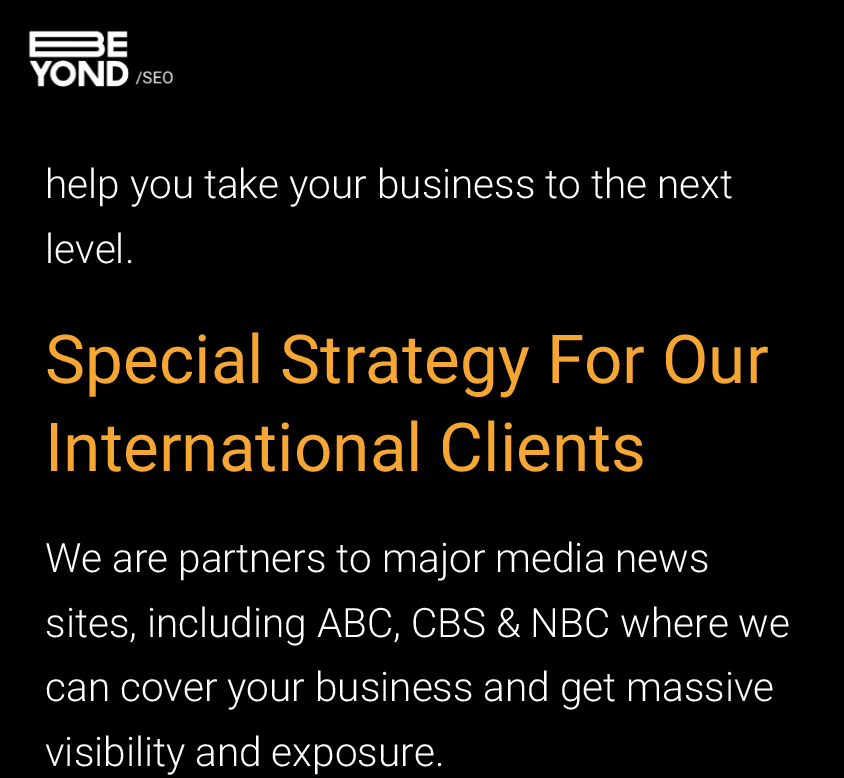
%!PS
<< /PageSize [844 778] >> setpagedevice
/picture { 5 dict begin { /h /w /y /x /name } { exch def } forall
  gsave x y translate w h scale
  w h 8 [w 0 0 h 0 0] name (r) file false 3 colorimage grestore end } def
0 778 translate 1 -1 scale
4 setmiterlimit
0 setgray
0 0 844 778 rectfill
(img1.rgb) 28 30 146 57 picture
/Roboto-Light [40.5 0 0 -40.5 0 0] selectfont
1 setgray
45 198 moveto (help you take your business to the next) show
45 263 moveto (level.) show
/Roboto-Regular [67.5 0 0 -67.5 0 0] selectfont
0.965 0.651 0.196 setrgbcolor
45 383 moveto (Special Strategy For Our) show
45 471 moveto (International Clients) show
/Roboto-Light [40.5 0 0 -40.5 0 0] selectfont
1 setgray
45 572 moveto (We are partners to major media news) show
45 637 moveto (sites, including ABC, CBS & NBC where we) show
45 701 moveto (can cover your business and get massive) show
45 766 moveto (visibility and exposure.) show
showpage
